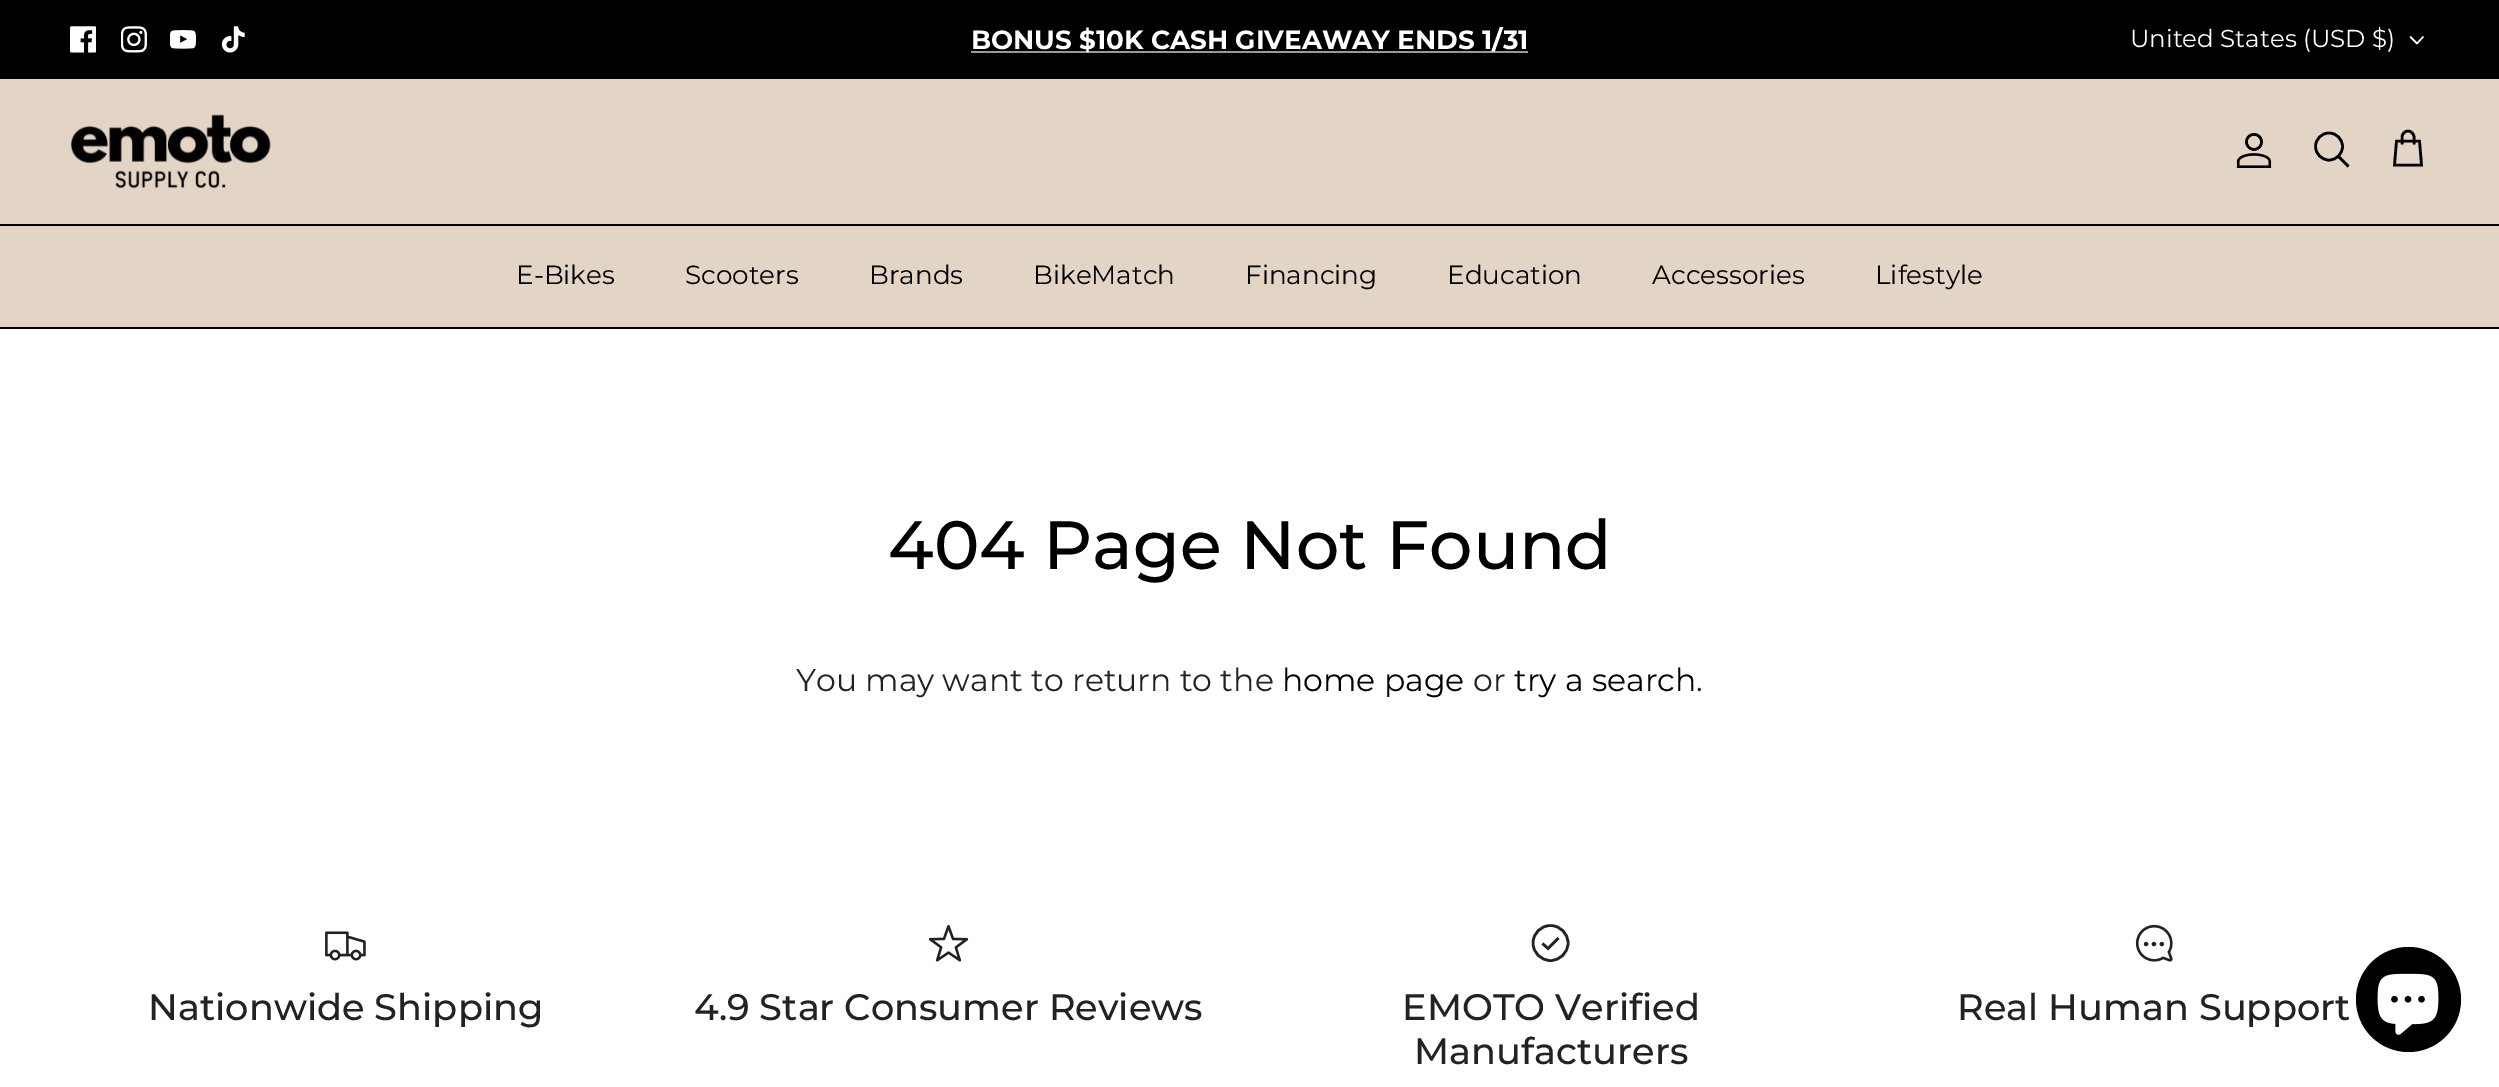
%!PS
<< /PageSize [2499 1087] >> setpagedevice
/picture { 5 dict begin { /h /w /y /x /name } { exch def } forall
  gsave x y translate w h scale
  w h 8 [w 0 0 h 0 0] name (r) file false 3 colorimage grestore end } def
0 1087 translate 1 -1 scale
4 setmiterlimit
1 setgray
0 0 2499 1087 rectfill
0 setgray
0 0 2499 79 rectfill
(img1.rgb) 70 26 26 27 picture
(img2.rgb) 121 26 26 27 picture
(img3.rgb) 170 30 26 19 picture
(img4.rgb) 221 26 24 27 picture
0.6 setgray
971 51 557 2 rectfill
/Montserrat-Bold [26.25 0 0 -26.25 0 0] selectfont
1 setgray
971 49 moveto (BONUS $10K CASH GIVEAWAY ENDS 1/31) show
/Montserrat-Regular [24.5 0 0 -24.5 0 0] selectfont
2130 47 moveto (United States \(USD $\)) show
1.5 setlinewidth
1 setlinecap
1 setlinejoin
newpath 2410.5 37 moveto 2417 43.5 lineto 2423 37 lineto stroke
0.89 0.835 0.773 setrgbcolor
0 79 2499 145 rectfill
0 setgray
0 224 2499 2 rectfill
(img5.rgb) 70 114 201 75 picture
(img6.rgb) 2236 133 36 35 picture
2.6 setlinewidth
0 setlinecap
0 setlinejoin
newpath 2329 146.5 13.5 0 360 arc closepath stroke
2 setlinecap
newpath 2339.5 157.5 moveto 2347.5 165.5 lineto stroke
0 setlinecap
newpath 2414 144.5 moveto 2414 137 lineto 2414 134 2411 131 2408 131 curveto 2405 131 2402 134 2402 137 curveto 2402 144.5 lineto 2396.5 141 moveto 2419.5 141 lineto 2421.5 165 lineto 2394.5 165 lineto closepath stroke
0 327 2499 2 rectfill
0.89 0.835 0.773 setrgbcolor
0 226 2499 101 rectfill
/Montserrat-Regular [26.25 0 0 -26.25 0 0] selectfont
0 setgray
516 284 moveto (E-Bikes) show
685 284 moveto (Scooters) show
869 284 moveto (Brands) show
1033 284 moveto (BikeMatch) show
1245 284 moveto (Financing) show
1447 284 moveto (Education) show
1652 284 moveto (Accessories) show
1875 284 moveto (Lifestyle) show
/Montserrat-Medium [68.25 0 0 -68.25 0 0] selectfont
888 569 moveto (404 Page Not Found) show
/Montserrat-Regular [31.5 0 0 -31.5 0 0] selectfont
0.125 0.133 0.137 setrgbcolor
796 691 moveto (You may want to return to the) show
0 setgray
1282 691 moveto (home page) show
0.125 0.133 0.137 setrgbcolor
1473 691 moveto (or) show
0 setgray
1514 691 moveto (try a search) show
0.125 0.133 0.137 setrgbcolor
1696 691 moveto (.) show
(img7.rgb) 325 931 41 30 picture
/Montserrat-Medium [36.75 0 0 -36.75 0 0] selectfont
148 1020 moveto (Nationwide Shipping) show
(img8.rgb) 928 924 41 38 picture
694 1020 moveto (4.9 Star Consumer Reviews) show
newpath 1550.5 943 17.5 0 360 arc closepath stroke
newpath 1558.5 938 moveto 1548 948.5 lineto 1542.5 943.5 lineto stroke
1402 1020 moveto (EMOTO Verified) show
1414 1064 moveto (Manufacturers) show
(img9.rgb) 2135 924 38 38 picture
1957 1020 moveto (Real Human Support) show
0 setgray
newpath 2408.5 999.5 52.5 0 360 arc closepath fill
(img10.rgb) 2377 973 62 62 picture
showpage
